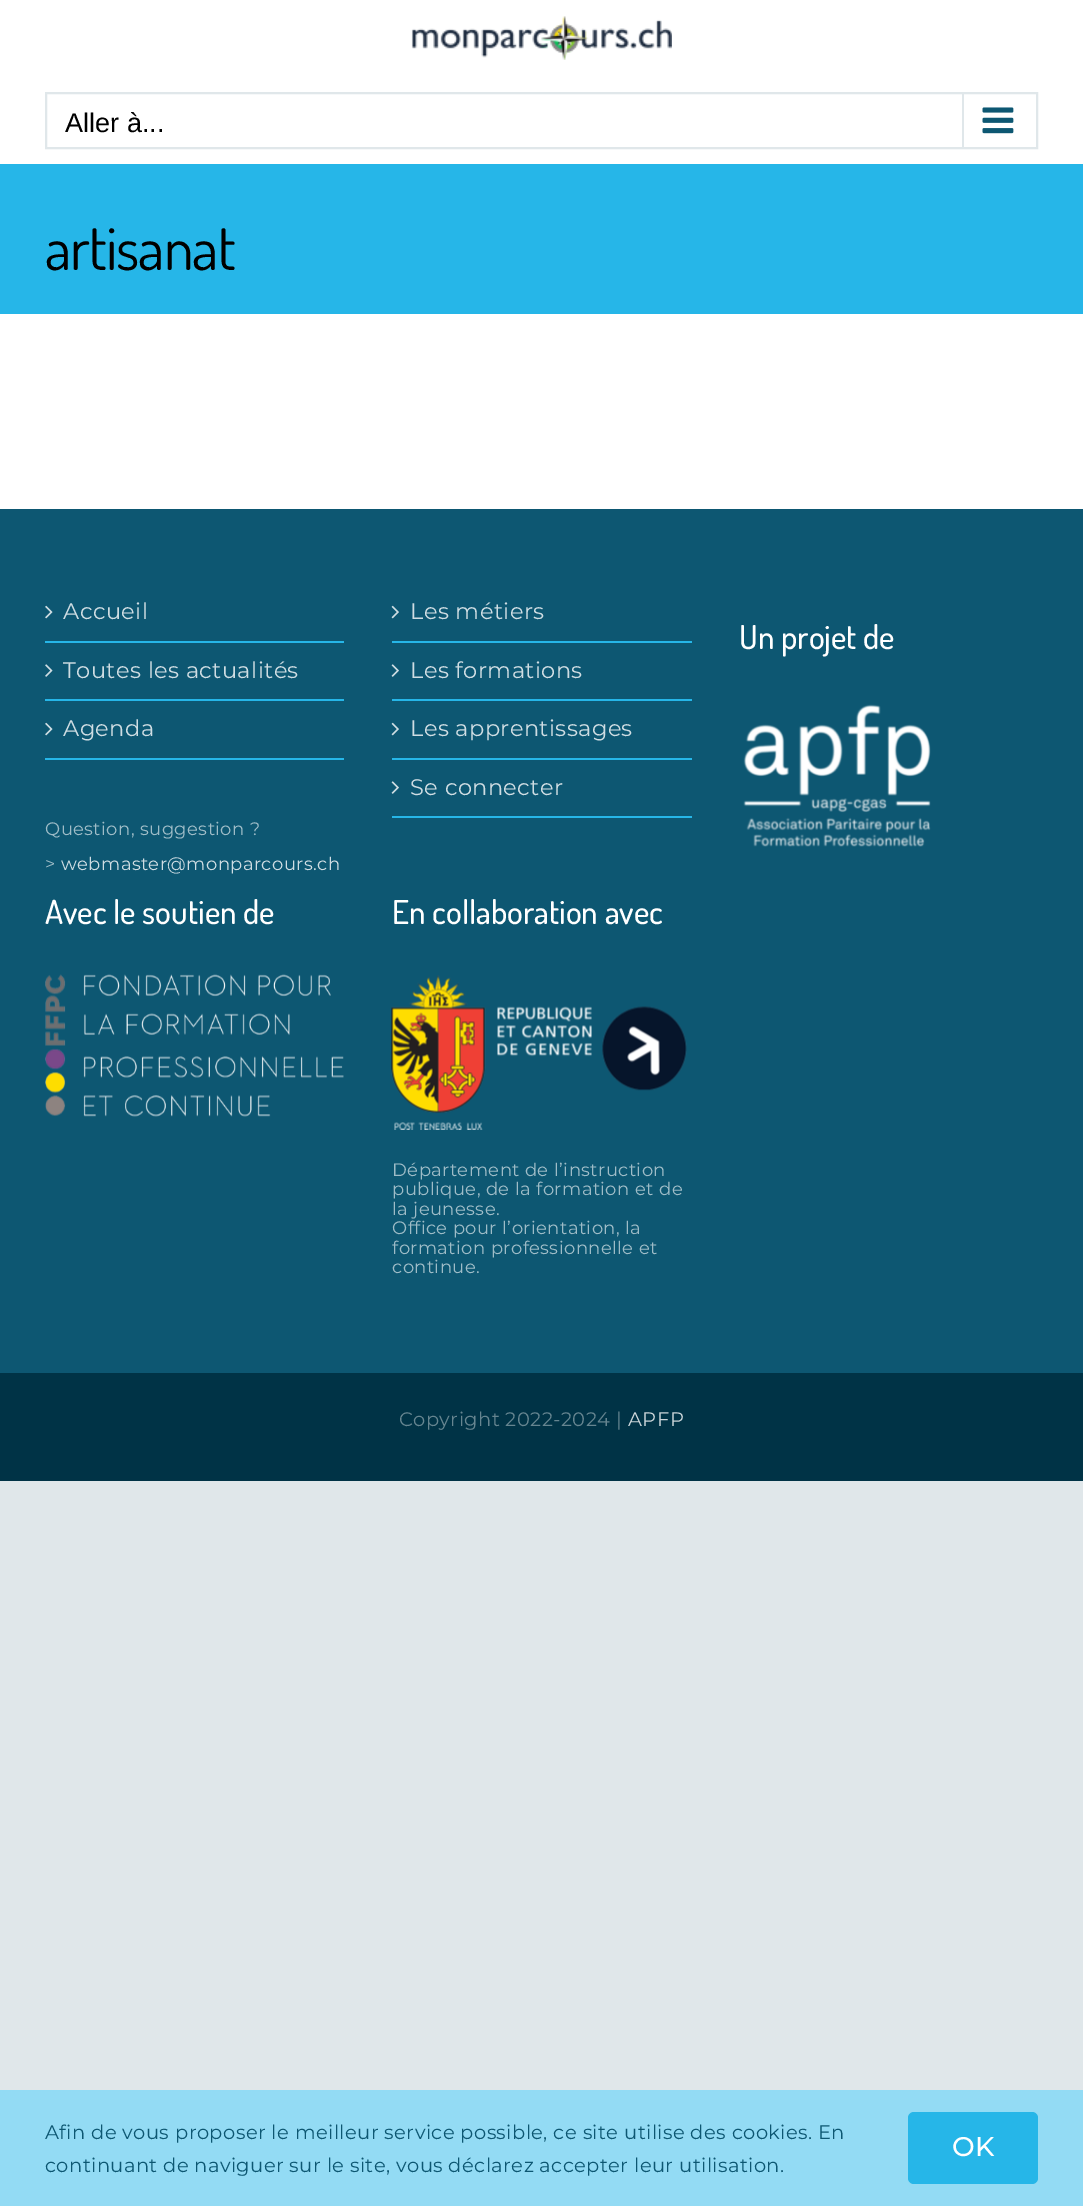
%!PS
<< /PageSize [1083 2206] >> setpagedevice
/roundrect { 5 dict begin { /r /h /w /y /x } { exch def } forall
  x r add y moveto x w add y 2 copy h add r arct x w add y h add x 1 index r arct
  x y h add x y r arct x y 2 copy exch w add exch r arct closepath end } def
/picture { 5 dict begin { /h /w /y /x /name } { exch def } forall
  gsave x y translate w h scale
  w h 8 [w 0 0 h 0 0] name (r) file false 3 colorimage grestore end } def
0 2206 translate 1 -1 scale
4 setmiterlimit
0.878 0.906 0.918 setrgbcolor
0 0 1083 2206 rectfill
1 setgray
0 0 1083 509 rectfill
(img1.rgb) 411 16 261 44 picture
0.878 0.906 0.918 setrgbcolor
2 setlinewidth
46 93 991 55 rectstroke
/LiberationSans-Regular [27 0 0 -27 0 0] selectfont
0 setgray
65 132 moveto (Aller à...) show
0.878 0.906 0.918 setrgbcolor
962 93 2 54 rectfill
(img2.rgb) 982 107 32 27 picture
0.149 0.714 0.91 setrgbcolor
0 164 1083 150 rectfill
/Dosis-Regular [60 0 0 -60 0 0] selectfont
0 setgray
45 270 moveto -1 0 (artisanat) ashow
0.051 0.341 0.447 setrgbcolor
0 509 1083 864 rectfill
0.149 0.714 0.91 setrgbcolor
45 641 299 2 rectfill
(img3.rgb) 45 605 8 14 picture
/Montserrat-Regular [22.5 0 0 -22.5 0 0] selectfont
0.812 0.867 0.89 setrgbcolor
63 619 moveto 0.4 0 (Accueil) ashow
0.149 0.714 0.91 setrgbcolor
45 699 299 2 rectfill
(img4.rgb) 45 664 8 13 picture
0.812 0.867 0.89 setrgbcolor
63 678 moveto 0.4 0 (Toutes les actualités) ashow
0.149 0.714 0.91 setrgbcolor
45 758 299 2 rectfill
(img3.rgb) 45 722 8 14 picture
0.812 0.867 0.89 setrgbcolor
63 736 moveto 0.4 0 (Agenda) ashow
/Montserrat-Regular [18 0 0 -18 0 0] selectfont
0.62 0.737 0.78 setrgbcolor
45 835 moveto 0.4 0 (Question, suggestion ?) ashow
45 870 moveto 0.4 0 (>) ashow
0.812 0.867 0.89 setrgbcolor
61 870 moveto 0.4 0 (webmaster@monparcours.ch) ashow
0.149 0.714 0.91 setrgbcolor
392 641 300 2 rectfill
(img5.rgb) 391 605 8 14 picture
/Montserrat-Regular [22.5 0 0 -22.5 0 0] selectfont
0.812 0.867 0.89 setrgbcolor
410 619 moveto 0.4 0 (Les métiers) ashow
0.149 0.714 0.91 setrgbcolor
392 699 300 2 rectfill
(img6.rgb) 391 664 8 13 picture
0.812 0.867 0.89 setrgbcolor
410 678 moveto 0.4 0 (Les formations) ashow
0.149 0.714 0.91 setrgbcolor
392 758 300 2 rectfill
(img5.rgb) 391 722 8 14 picture
0.812 0.867 0.89 setrgbcolor
410 736 moveto 0.4 0 (Les apprentissages) ashow
0.149 0.714 0.91 setrgbcolor
392 816 300 2 rectfill
(img6.rgb) 391 781 8 13 picture
0.812 0.867 0.89 setrgbcolor
410 795 moveto 0.4 0 (Se connecter) ashow
/Dosis-Medium [33 0 0 -33 0 0] selectfont
1 setgray
739 649 moveto (Un projet de) show
(img7.rgb) 743 704 188 143 picture
45 924 moveto (Avec le soutien de) show
(img8.rgb) 45 974 299 143 picture
392 924 moveto (En collaboration avec) show
(img9.rgb) 391 975 296 155 picture
/Montserrat-Regular [18 0 0 -18 0 0] selectfont
0.62 0.737 0.78 setrgbcolor
392 1176 moveto 0.4 0 (Département de l’instruction) ashow
392 1195 moveto 0.4 0 (publique, de la formation et de) ashow
392 1215 moveto 0.4 0 (la jeunesse.) ashow
392 1234 moveto 0.4 0 (Office pour l’orientation, la) ashow
392 1254 moveto 0.4 0 (formation professionnelle et) ashow
392 1273 moveto 0.4 0 (continue.) ashow
0 0.2 0.275 setrgbcolor
0 1373 1083 108 rectfill
/Montserrat-Regular [19.5 0 0 -19.5 0 0] selectfont
0.4 0.522 0.565 setrgbcolor
399 1426 moveto 0.4 0 (Copyright 2022-2024 |) ashow
0.8 0.839 0.855 setrgbcolor
628 1426 moveto 0.4 0 (APFP) ashow
0.576 0.859 0.957 setrgbcolor
0 2090 1083 116 rectfill
0.051 0.341 0.447 setrgbcolor
45 2139 moveto 0.4 0 (Afin de vous proposer le meilleur service possible, ce site utilise des cookies. En) ashow
45 2172 moveto 0.4 0 (continuant de naviguer sur le site, vous déclarez accepter leur utilisation.) ashow
0.149 0.714 0.91 setrgbcolor
908 2112 130 72 6 roundrect fill
/Montserrat-Medium [27 0 0 -27 0 0] selectfont
1 setgray
952 2156 moveto 0.4 0 (OK) ashow
showpage
